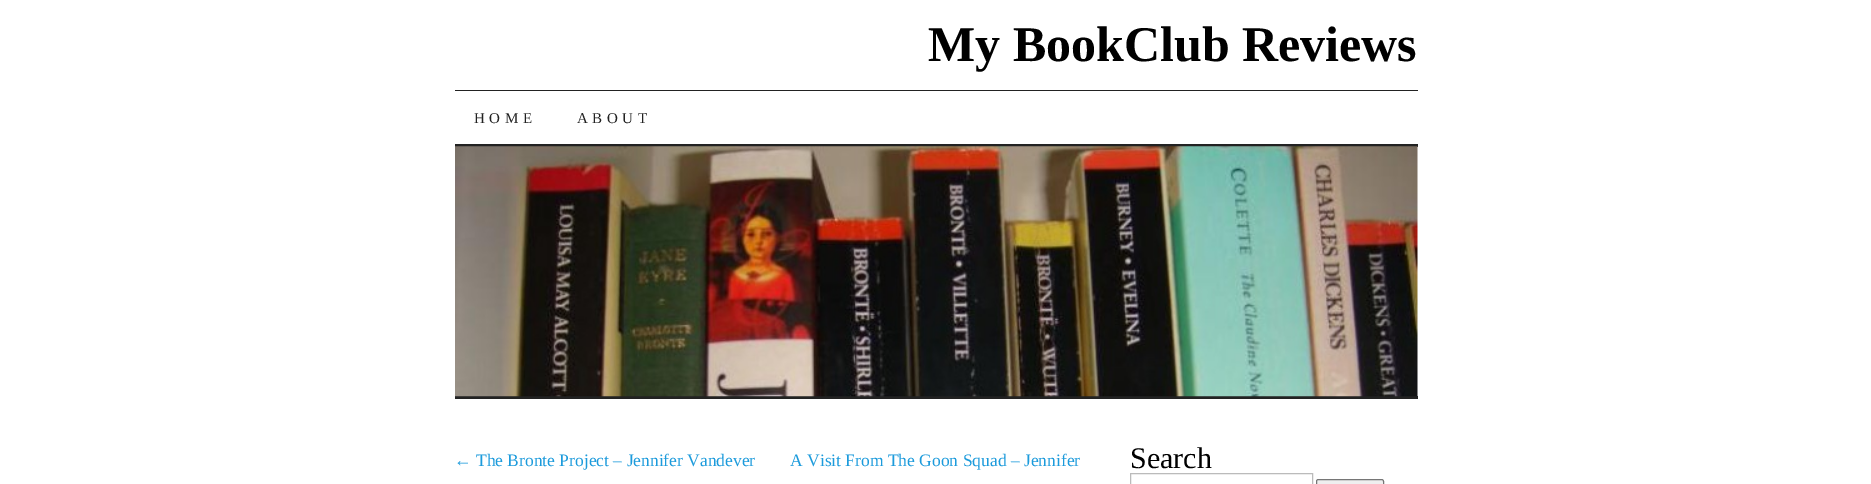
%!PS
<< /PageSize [1871 484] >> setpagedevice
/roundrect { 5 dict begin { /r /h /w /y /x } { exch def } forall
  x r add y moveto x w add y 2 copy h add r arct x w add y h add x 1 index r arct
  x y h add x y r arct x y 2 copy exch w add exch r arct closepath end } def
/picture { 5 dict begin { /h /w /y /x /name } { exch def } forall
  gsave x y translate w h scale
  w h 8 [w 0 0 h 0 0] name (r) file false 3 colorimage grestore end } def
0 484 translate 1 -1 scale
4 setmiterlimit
1 setgray
0 0 1871 484 rectfill
/LiberationSerif-Bold [50 0 0 -50 0 0] selectfont
0 setgray
928 61 moveto (My BookClub Reviews) show
0.133 setgray
455 90 963 1 rectfill
455 144 963 3 rectfill
/LiberationSerif-Regular [15 0 0 -15 0 0] selectfont
474 123 moveto 4.5 0 (HOME) ashow
577 123 moveto 4.5 0 (ABOUT) ashow
455 396 963 3 rectfill
(img1.rgb) 455 146 963 251 picture
/LiberationSerif-Regular [17.5 0 0 -17.5 0 0] selectfont
0.11 0.608 0.863 setrgbcolor
454 466 moveto (← The Bronte Project – Jennifer Vandever) show
790 466 moveto (A Visit From The Goon Squad – Jennifer) show
/LiberationSerif-Regular [30 0 0 -30 0 0] selectfont
0 setgray
1130 468 moveto (Search) show
0.733 setgray
1130.5 473.5 182 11 rectstroke
0.937 setgray
1316.5 479.5 67 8 2 roundrect gsave fill grestore
0.463 setgray
stroke
showpage
